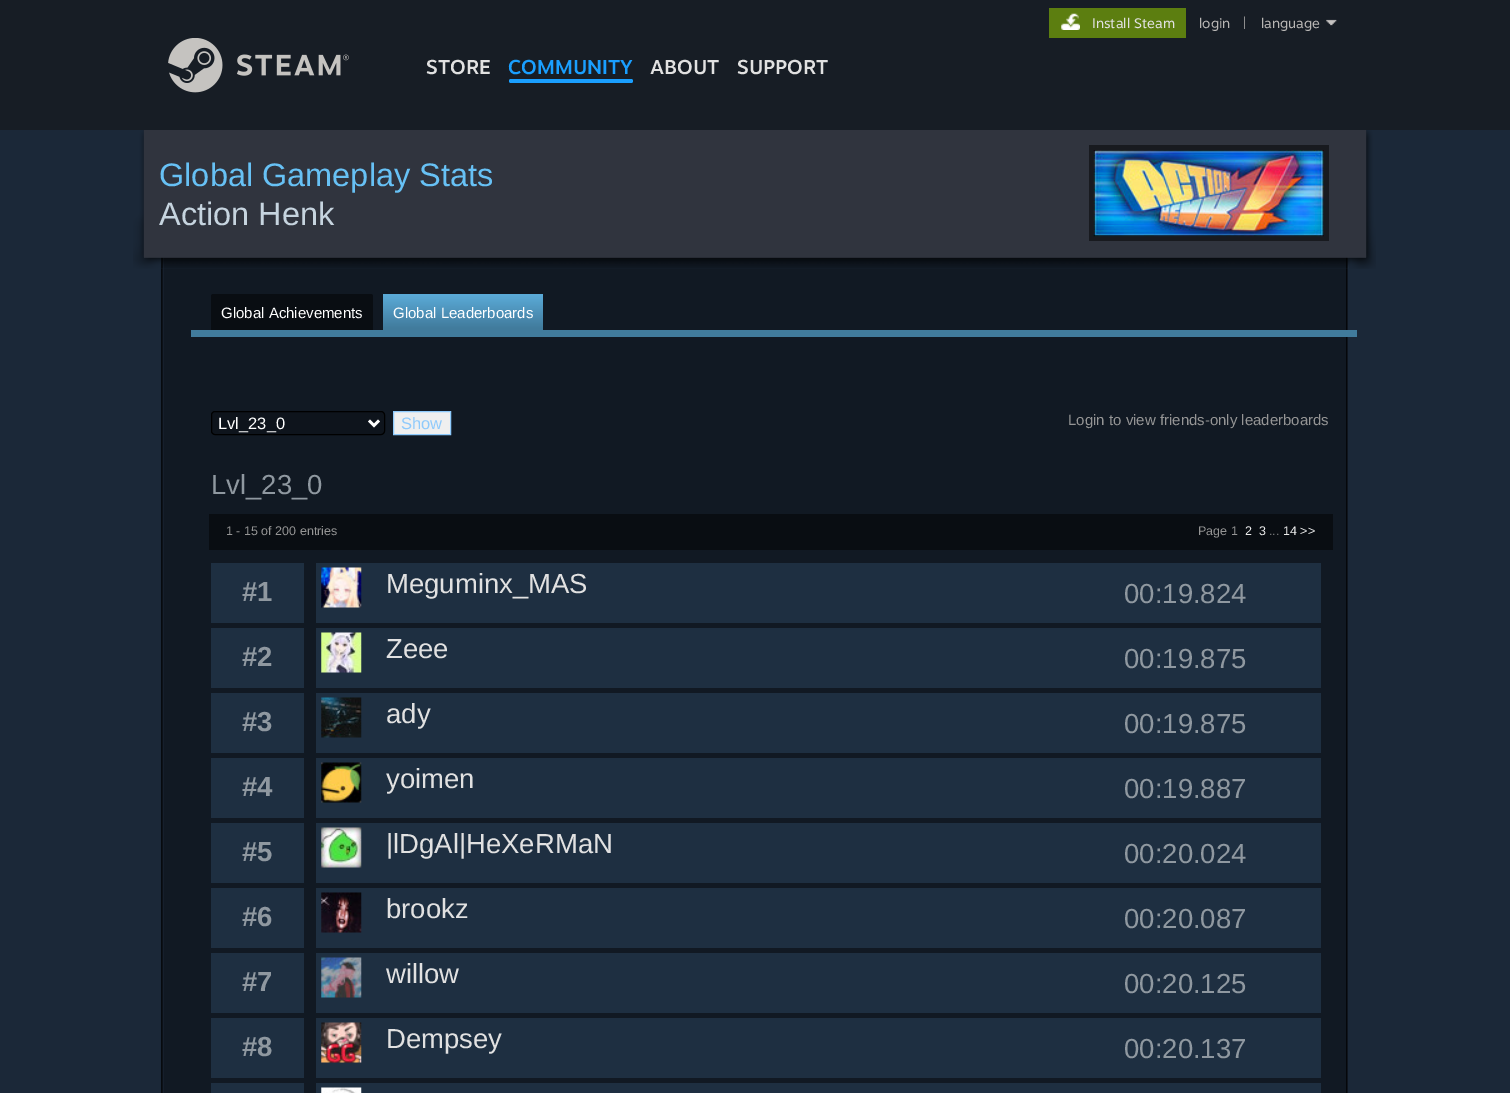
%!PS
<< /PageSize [1510 1093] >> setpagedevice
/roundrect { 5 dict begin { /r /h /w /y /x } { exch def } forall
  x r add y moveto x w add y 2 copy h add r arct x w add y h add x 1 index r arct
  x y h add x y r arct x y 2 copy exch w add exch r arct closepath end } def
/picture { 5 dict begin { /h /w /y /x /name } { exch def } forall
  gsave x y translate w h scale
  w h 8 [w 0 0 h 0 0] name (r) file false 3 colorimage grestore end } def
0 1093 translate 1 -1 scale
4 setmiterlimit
0.106 0.157 0.22 setrgbcolor
0 0 1510 1093 rectfill
0.169 0.2 0.251 setrgbcolor
144 257 1222 1 rectfill
0.09 0.114 0.145 setrgbcolor
0 0 1510 130 rectfill
0.361 0.494 0.063 setrgbcolor
1049 8 137 30 rectfill
(img1.rgb) 1061 13 19 17 picture
/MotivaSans-Regular [13.75 0 0 -13.75 0 0] selectfont
0.882 setgray
1092 28 moveto (Install Steam) show
0.722 0.714 0.706 setrgbcolor
1199 28 moveto (login) show
1243 28 moveto (|) show
1261 28 moveto (language) show
(img2.rgb) 1326 19 11 7 picture
(img3.rgb) 168 38 181 55 picture
/MotivaSans-Medium [20 0 0 -20 0 0] selectfont
0.882 setgray
426 74 moveto (STORE) show
0.102 0.624 1 setrgbcolor
508 74 moveto (COMMUNITY) show
509 79 124 4 2 roundrect fill
0.882 setgray
650 74 moveto (ABOUT) show
737 74 moveto (SUPPORT) show
(img4.rgb) 133 130 1243 139 picture
/LiberationSans-Regular [32.5 0 0 -32.5 0 0] selectfont
0.404 0.757 0.961 setrgbcolor
159 186 moveto (Global Gameplay Stats) show
0.776 0.831 0.875 setrgbcolor
159 225 moveto (Action Henk) show
0.094 0.102 0.122 setrgbcolor
1089 145 240 96 rectfill
(img5.rgb) 1093 150 231 87 picture
(img6.rgb) 161 268 1187 825 picture
0.035 0.051 0.071 setrgbcolor
newpath 213.5 294 moveto 370.5 294 lineto 372 294 373 295 373 296.5 curveto 373 330 lineto 211 330 lineto 211 296.5 lineto 211 295 212 294 213.5 294 curveto closepath fill
/LiberationSans-Regular [15 0 0 -15 0 0] selectfont
1 setgray
221 318 moveto (Global Achievements) show
gsave newpath 385.5 294 moveto 540.5 294 lineto 542 294 543 295 543 296.5 curveto 543 330 lineto 383 330 lineto 383 296.5 lineto 383 295 384 294 385.5 294 curveto closepath clip newpath
<< /ShadingType 2 /ColorSpace /DeviceRGB /Coords [463 294 463 330] /Extend [true true] /Function << /FunctionType 3 /Domain [0 1] /Functions [<< /FunctionType 2 /Domain [0 1] /C0 [0.353 0.663 0.839] /C1 [0.353 0.663 0.839] /N 1 >> << /FunctionType 2 /Domain [0 1] /C0 [0.353 0.663 0.839] /C1 [0.255 0.482 0.612] /N 1 >> << /FunctionType 2 /Domain [0 1] /C0 [0.255 0.482 0.612] /C1 [0.255 0.482 0.612] /N 1 >>] /Bounds [0.05 0.95] /Encode [0 1 0 1 0 1] >> >> shfill grestore
393 318 moveto (Global Leaderboards) show
0.255 0.482 0.612 setrgbcolor
191 330 1166 7 rectfill
0.055 0.078 0.11 setrgbcolor
211.5 411.5 173 23 3.5 roundrect gsave fill grestore
0 setgray
stroke
1 setgray
2.5 setlinewidth
newpath 369 420.5 moveto 374 425.5 lineto 379 420.5 lineto stroke
/LiberationSans-Regular [16.5 0 0 -16.5 0 0] selectfont
218 429 moveto (Lvl_23_0) show
0.937 setgray
newpath 393.5 411.5 moveto 450.5 411.5 lineto 450.5 434.5 lineto 393.5 434.5 lineto closepath gsave fill grestore
0.557 0.792 0.988 setrgbcolor
1 setlinewidth
stroke
401 429 moveto (Show) show
/LiberationSans-Regular [15 0 0 -15 0 0] selectfont
0.584 setgray
1068 425 moveto (Login to view friends-only leaderboards) show
/LiberationSans-Regular [27.5 0 0 -27.5 0 0] selectfont
0.561 0.596 0.627 setrgbcolor
211 494 moveto (Lvl_23_0) show
0.035 0.051 0.071 setrgbcolor
209 514 1124 36 rectfill
/LiberationSans-Regular [12.5 0 0 -12.5 0 0] selectfont
0.584 setgray
226 535 moveto (1 - 15 of 200 entries) show
1198 535 moveto (Page 1) show
0.922 setgray
1245 535 moveto (2) show
1259 535 moveto (3) show
0.584 setgray
1269 535 moveto (...) show
0.922 setgray
1283 535 moveto (14 >>) show
0.118 0.184 0.255 setrgbcolor
211 563 93 60 rectfill
/LiberationSans-Bold [27.5 0 0 -27.5 0 0] selectfont
0.561 0.596 0.627 setrgbcolor
242 601 moveto (#1) show
0.118 0.184 0.255 setrgbcolor
316 563 1005 60 rectfill
(img7.rgb) 321 567 41 41 picture
/LiberationSans-Regular [27.5 0 0 -27.5 0 0] selectfont
0.882 setgray
386 593 moveto (Meguminx_MAS) show
0.561 0.596 0.627 setrgbcolor
1124 603 moveto (00:19.824) show
0.118 0.184 0.255 setrgbcolor
211 628 93 60 rectfill
/LiberationSans-Bold [27.5 0 0 -27.5 0 0] selectfont
0.561 0.596 0.627 setrgbcolor
242 666 moveto (#2) show
0.118 0.184 0.255 setrgbcolor
316 628 1005 60 rectfill
(img8.rgb) 321 632 41 41 picture
/LiberationSans-Regular [27.5 0 0 -27.5 0 0] selectfont
0.882 setgray
386 658 moveto (Zeee) show
0.561 0.596 0.627 setrgbcolor
1124 668 moveto (00:19.875) show
0.118 0.184 0.255 setrgbcolor
211 693 93 60 rectfill
/LiberationSans-Bold [27.5 0 0 -27.5 0 0] selectfont
0.561 0.596 0.627 setrgbcolor
242 731 moveto (#3) show
0.118 0.184 0.255 setrgbcolor
316 693 1005 60 rectfill
(img9.rgb) 321 697 41 41 picture
/LiberationSans-Regular [27.5 0 0 -27.5 0 0] selectfont
0.882 setgray
386 723 moveto (ady) show
0.561 0.596 0.627 setrgbcolor
1124 733 moveto (00:19.875) show
0.118 0.184 0.255 setrgbcolor
211 758 93 60 rectfill
/LiberationSans-Bold [27.5 0 0 -27.5 0 0] selectfont
0.561 0.596 0.627 setrgbcolor
242 796 moveto (#4) show
0.118 0.184 0.255 setrgbcolor
316 758 1005 60 rectfill
(img10.rgb) 321 762 41 41 picture
/LiberationSans-Regular [27.5 0 0 -27.5 0 0] selectfont
0.882 setgray
386 788 moveto (yoimen) show
0.561 0.596 0.627 setrgbcolor
1124 798 moveto (00:19.887) show
0.118 0.184 0.255 setrgbcolor
211 823 93 60 rectfill
/LiberationSans-Bold [27.5 0 0 -27.5 0 0] selectfont
0.561 0.596 0.627 setrgbcolor
242 861 moveto (#5) show
0.118 0.184 0.255 setrgbcolor
316 823 1005 60 rectfill
(img11.rgb) 321 827 41 41 picture
/LiberationSans-Regular [27.5 0 0 -27.5 0 0] selectfont
0.882 setgray
386 853 moveto (|lDgAl|HeXeRMaN) show
0.561 0.596 0.627 setrgbcolor
1124 863 moveto (00:20.024) show
0.118 0.184 0.255 setrgbcolor
211 888 93 60 rectfill
/LiberationSans-Bold [27.5 0 0 -27.5 0 0] selectfont
0.561 0.596 0.627 setrgbcolor
242 926 moveto (#6) show
0.118 0.184 0.255 setrgbcolor
316 888 1005 60 rectfill
(img12.rgb) 321 892 41 41 picture
/LiberationSans-Regular [27.5 0 0 -27.5 0 0] selectfont
0.882 setgray
386 918 moveto (brookz) show
0.561 0.596 0.627 setrgbcolor
1124 928 moveto (00:20.087) show
0.118 0.184 0.255 setrgbcolor
211 953 93 60 rectfill
/LiberationSans-Bold [27.5 0 0 -27.5 0 0] selectfont
0.561 0.596 0.627 setrgbcolor
242 991 moveto (#7) show
0.118 0.184 0.255 setrgbcolor
316 953 1005 60 rectfill
(img13.rgb) 321 957 41 41 picture
/LiberationSans-Regular [27.5 0 0 -27.5 0 0] selectfont
0.882 setgray
386 983 moveto (willow) show
0.561 0.596 0.627 setrgbcolor
1124 993 moveto (00:20.125) show
0.118 0.184 0.255 setrgbcolor
211 1018 93 60 rectfill
/LiberationSans-Bold [27.5 0 0 -27.5 0 0] selectfont
0.561 0.596 0.627 setrgbcolor
242 1056 moveto (#8) show
0.118 0.184 0.255 setrgbcolor
316 1018 1005 60 rectfill
(img14.rgb) 321 1022 41 41 picture
/LiberationSans-Regular [27.5 0 0 -27.5 0 0] selectfont
0.882 setgray
386 1048 moveto (Dempsey) show
0.561 0.596 0.627 setrgbcolor
1124 1058 moveto (00:20.137) show
0.118 0.184 0.255 setrgbcolor
211 1083 93 10 rectfill
316 1083 1005 10 rectfill
(img15.rgb) 321 1087 41 6 picture
showpage
